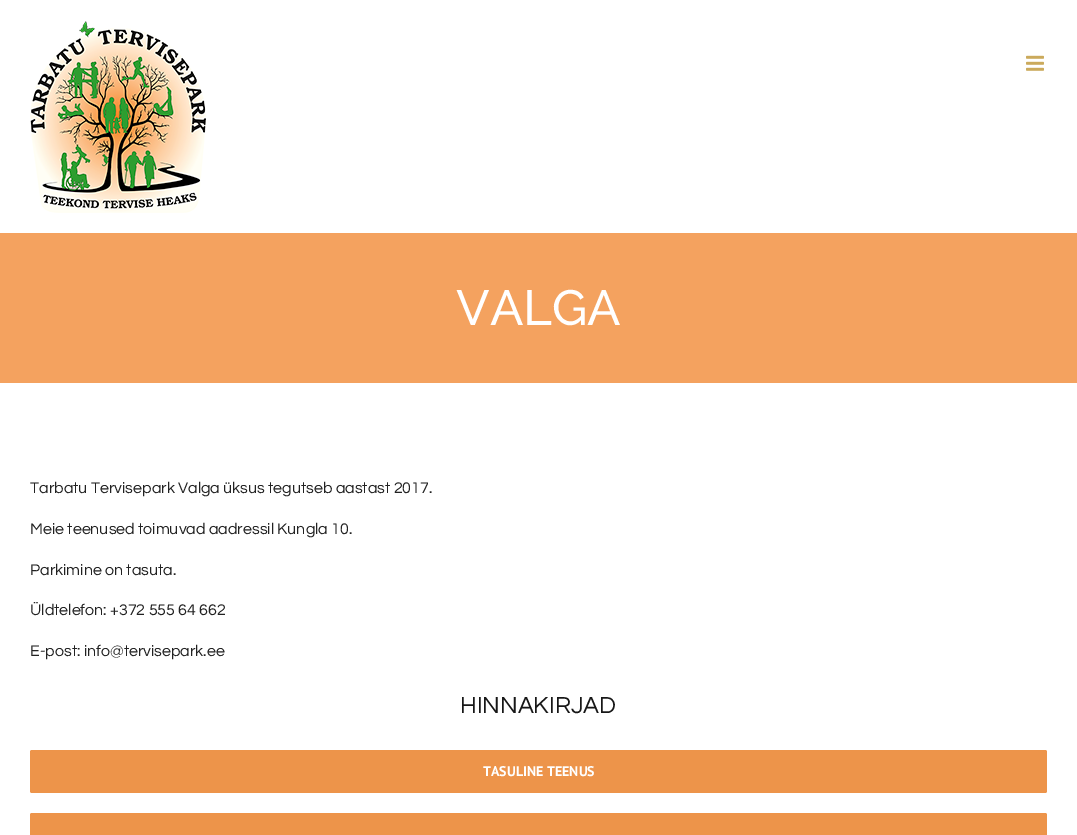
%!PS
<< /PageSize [1077 835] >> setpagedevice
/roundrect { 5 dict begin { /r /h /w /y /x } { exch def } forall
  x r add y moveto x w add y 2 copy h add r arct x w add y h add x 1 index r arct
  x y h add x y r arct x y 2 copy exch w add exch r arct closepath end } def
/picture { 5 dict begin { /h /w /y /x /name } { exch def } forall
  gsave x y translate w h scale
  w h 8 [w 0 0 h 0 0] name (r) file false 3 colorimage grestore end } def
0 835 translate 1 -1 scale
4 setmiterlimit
1 setgray
0 0 1077 835 rectfill
(img1.rgb) 30 21 176 192 picture
(img2.rgb) 1026 55 18 16 picture
0.957 0.635 0.373 setrgbcolor
0 233 1077 150 rectfill
/Raleway-Thin [49.5 0 0 -49.5 0 0] selectfont
1 setgray
456 325 moveto (VALGA) show
/Questrial-Regular [16 0 0 -16 0 0] selectfont
0.133 setgray
30 493 moveto (Tarbatu Tervisepark Valga üksus tegutseb aastast 2017.) show
30 534 moveto (Meie teenused toimuvad aadressil Kungla 10.) show
30 575 moveto (Parkimine on tasuta.) show
30 615 moveto (Üldtelefon: +372 555 64 662) show
30 656 moveto (E-post: info@tervisepark.ee) show
/Questrial-Regular [24 0 0 -24 0 0] selectfont
0.09 setgray
460 713 moveto (HINNAKIRJAD) show
0.929 0.58 0.29 setrgbcolor
30 750 1017 43 2 roundrect fill
/PTSans-Bold [14 0 0 -14 0 0] selectfont
1 setgray
483 776 moveto (TASULINE TEENUS) show
0.929 0.58 0.29 setrgbcolor
30 813 1017 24 2 roundrect fill
showpage
